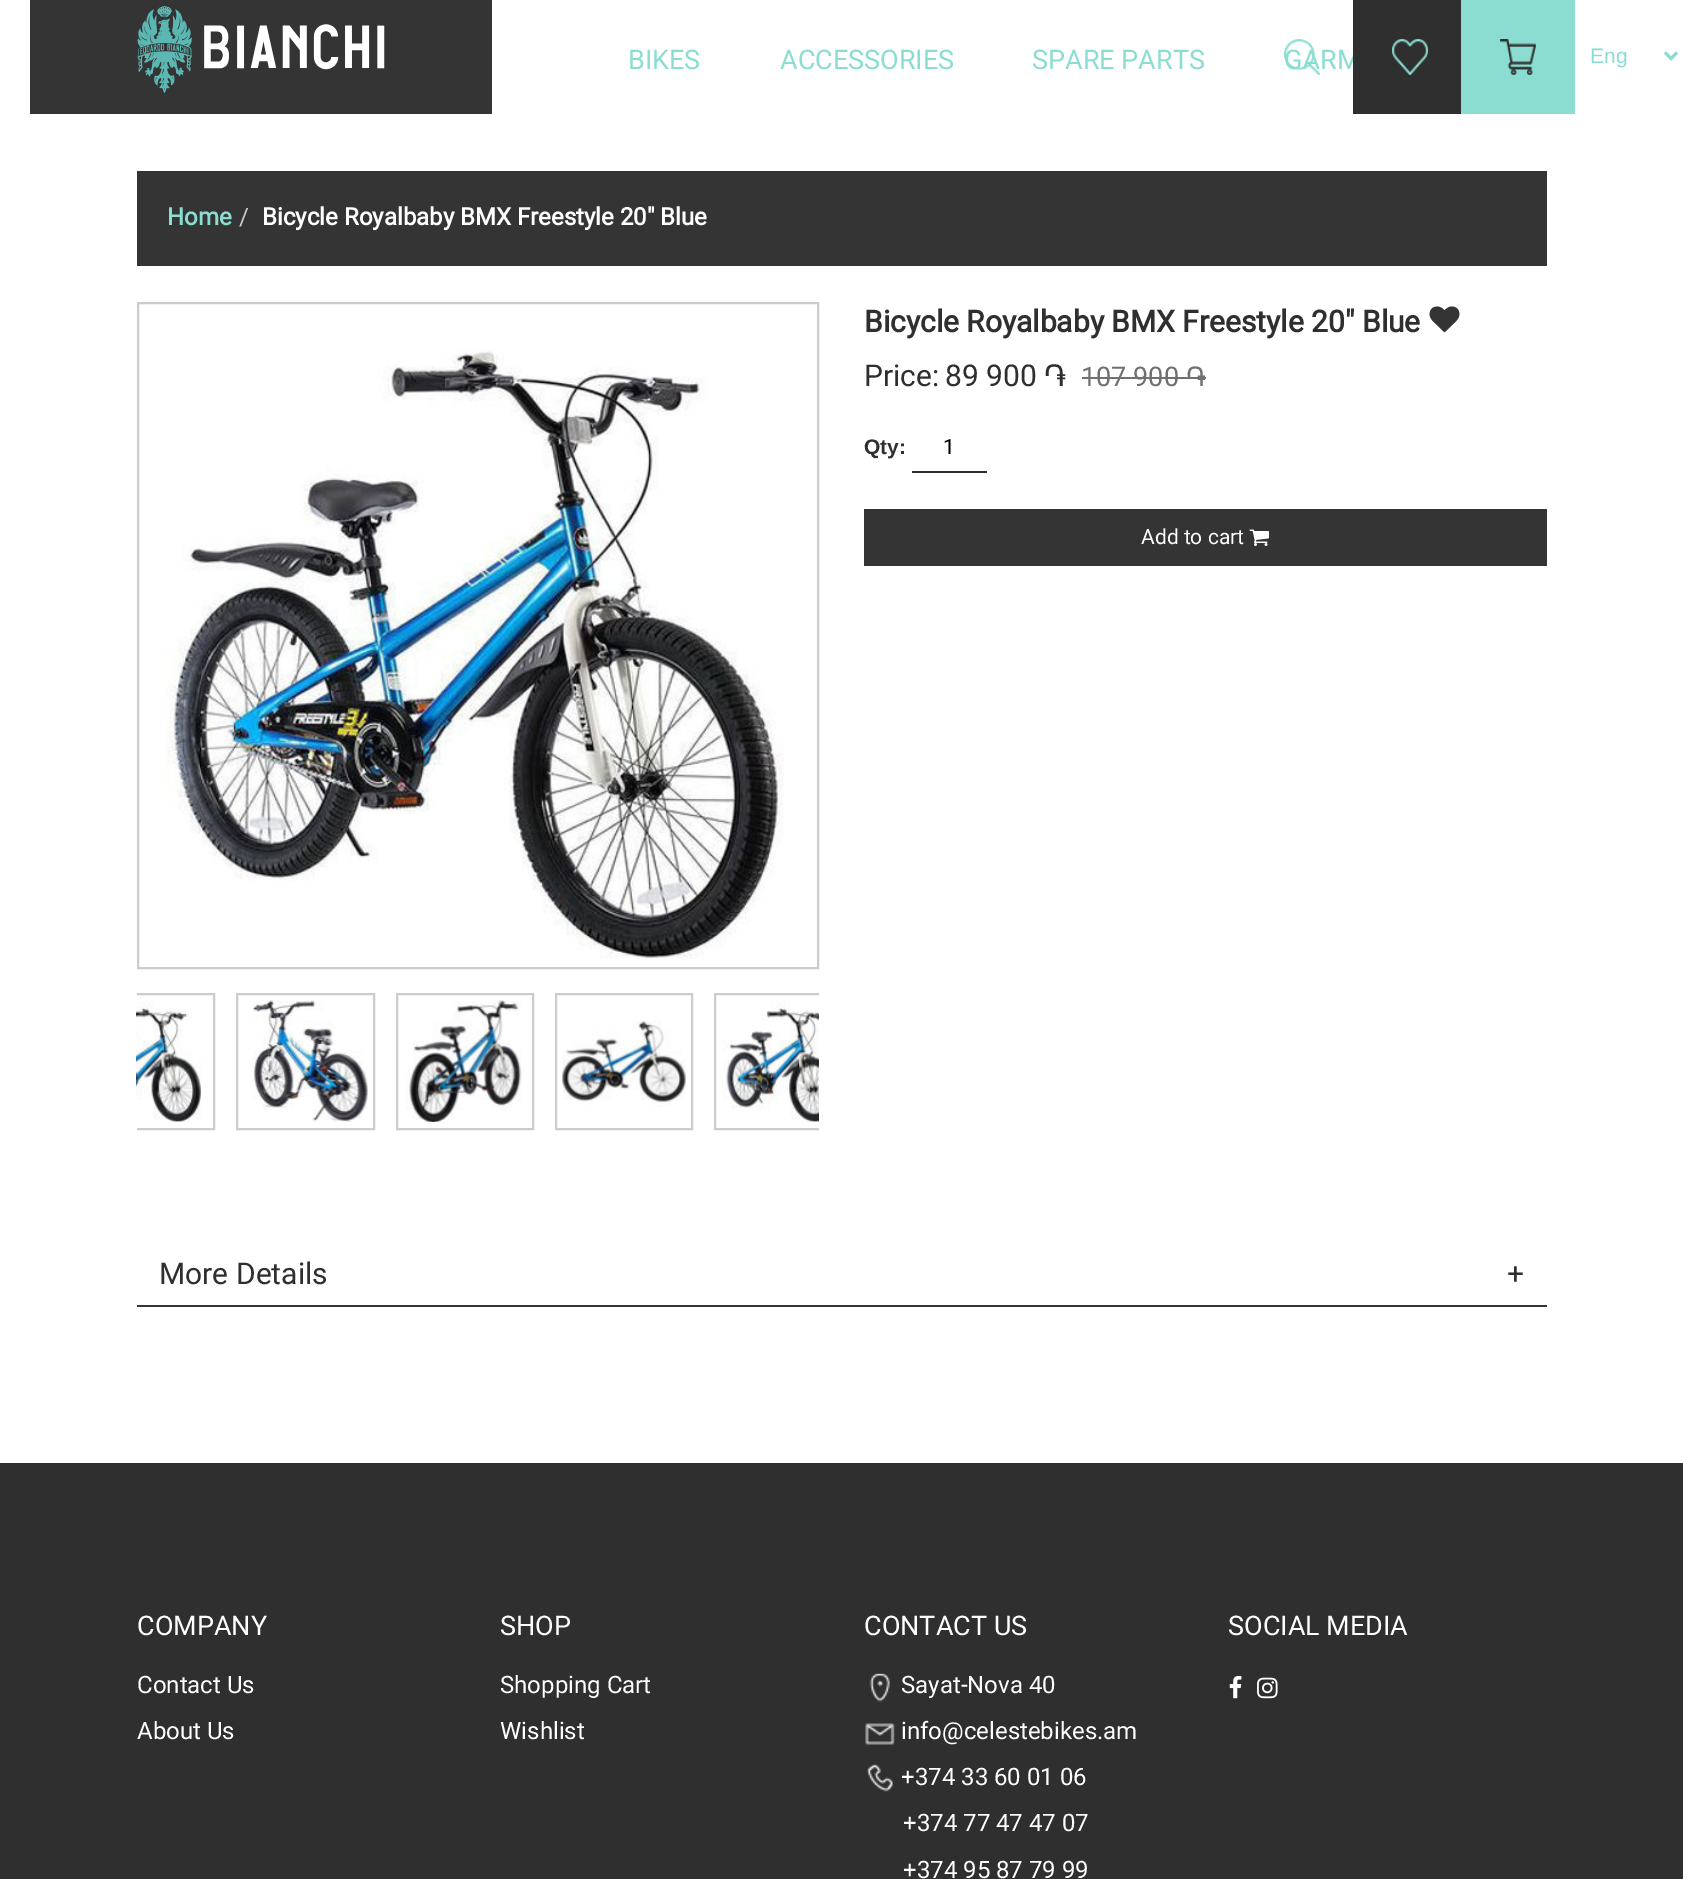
%!PS
<< /PageSize [1683 1879] >> setpagedevice
/picture { 5 dict begin { /h /w /y /x /name } { exch def } forall
  gsave x y translate w h scale
  w h 8 [w 0 0 h 0 0] name (r) file false 3 colorimage grestore end } def
0 1879 translate 1 -1 scale
4 setmiterlimit
1 setgray
0 0 1683 1879 rectfill
0.204 setgray
30 0 462 114 rectfill
(img1.rgb) 137 6 248 87 picture
/Roboto-Regular [27 0 0 -27 0 0] selectfont
0.545 0.867 0.82 setrgbcolor
628 69 moveto (BIKES) show
780 69 moveto (ACCESSORIES) show
1032 69 moveto (SPARE PARTS) show
1284 69 moveto (GARM) show
(img2.rgb) 1284 39 36 36 picture
0.184 setgray
1353 0 108 114 rectfill
(img3.rgb) 1392 39 36 36 picture
0.545 0.867 0.82 setrgbcolor
1461 0 114 114 rectfill
(img4.rgb) 1500 39 36 36 picture
3 setlinewidth
newpath 1665 52.5 moveto 1671 58.5 lineto 1677 52.5 lineto stroke
/LiberationSans-Regular [21 0 0 -21 0 0] selectfont
1590 63 moveto (Eng) show
0.204 setgray
137 171 1410 95 rectfill
/Roboto-Bold [24 0 0 -24 0 0] selectfont
0.545 0.867 0.82 setrgbcolor
167 225 moveto (Home) show
/Roboto-Regular [24 0 0 -24 0 0] selectfont
0.8 setgray
239 225 moveto (/) show
/Roboto-Bold [24 0 0 -24 0 0] selectfont
1 setgray
262 225 moveto (Bicycle Royalbaby BMX Freestyle 20″ Blue) show
0.8 setgray
2 setlinewidth
138 303 680 665 rectstroke
(img5.rgb) 164 348 621 611 picture
gsave
137 993 682 144 rectclip
78 994 136 135 rectstroke
grestore
(img6.rgb) 136 1000 66 122 picture
237 994 137 135 rectstroke
(img7.rgb) 252 1000 116 122 picture
397 994 136 135 rectstroke
(img8.rgb) 405 1000 117 122 picture
556 994 136 135 rectstroke
(img9.rgb) 562 1020 124 87 picture
gsave
137 993 682 144 rectclip
715 994 136 135 rectstroke
grestore
(img10.rgb) 722 1000 97 122 picture
/Roboto-Bold [30 0 0 -30 0 0] selectfont
0.184 setgray
864 332 moveto (Bicycle Royalbaby BMX Freestyle 20″ Blue) show
(img11.rgb) 1429 306 31 27 picture
/Roboto-Regular [30 0 0 -30 0 0] selectfont
864 386 moveto (Price:) show
945 386 moveto (89 900) show
/FreeSans-Regular [30 0 0 -30 0 0] selectfont
1044 386 moveto (֏) show
/Roboto-Regular [27 0 0 -27 0 0] selectfont
0.439 setgray
1081 386 moveto (107 900) show
1082 377 124 2 rectfill
/FreeSans-Regular [27 0 0 -27 0 0] selectfont
1186 386 moveto (֏) show
/LiberationSans-Bold [21 0 0 -21 0 0] selectfont
0.184 setgray
864 454 moveto (Qty:) show
912 471 75 2 rectfill
/Roboto-Regular [21 0 0 -21 0 0] selectfont
0 setgray
943 454 moveto (1) show
0.204 setgray
864 509 683 57 rectfill
1 setgray
1141 544 moveto (Add to cart) show
(img12.rgb) 1249 529 20 17 picture
0.204 setgray
137 1305 1410 2 rectfill
/Roboto-Regular [30 0 0 -30 0 0] selectfont
0.184 setgray
159 1284 moveto (More Details) show
1507 1284 moveto (+) show
0 1463 1683 416 rectfill
/Roboto-Regular [27 0 0 -27 0 0] selectfont
1 setgray
137 1635 moveto (COMPANY) show
/Roboto-Regular [24 0 0 -24 0 0] selectfont
137 1693 moveto (Contact Us) show
137 1739 moveto (About Us) show
/Roboto-Regular [27 0 0 -27 0 0] selectfont
500 1635 moveto (SHOP) show
/Roboto-Regular [24 0 0 -24 0 0] selectfont
500 1693 moveto (Shopping Cart) show
500 1739 moveto (Wishlist) show
/Roboto-Regular [27 0 0 -27 0 0] selectfont
864 1635 moveto (CONTACT US) show
(img13.rgb) 869 1673 21 29 picture
/Roboto-Regular [24 0 0 -24 0 0] selectfont
901 1693 moveto (Sayat-Nova 40) show
(img14.rgb) 865 1723 30 22 picture
901 1739 moveto (info@celestebikes.am) show
(img15.rgb) 866 1764 27 28 picture
901 1785 moveto (+374 33 60 01 06) show
903 1831 moveto (+374 77 47 47 07) show
903 1878 moveto (+374 95 87 79 99) show
/Roboto-Regular [27 0 0 -27 0 0] selectfont
1228 1635 moveto (SOCIAL MEDIA) show
(img16.rgb) 1229 1675 13 24 picture
(img17.rgb) 1257 1677 21 22 picture
showpage
